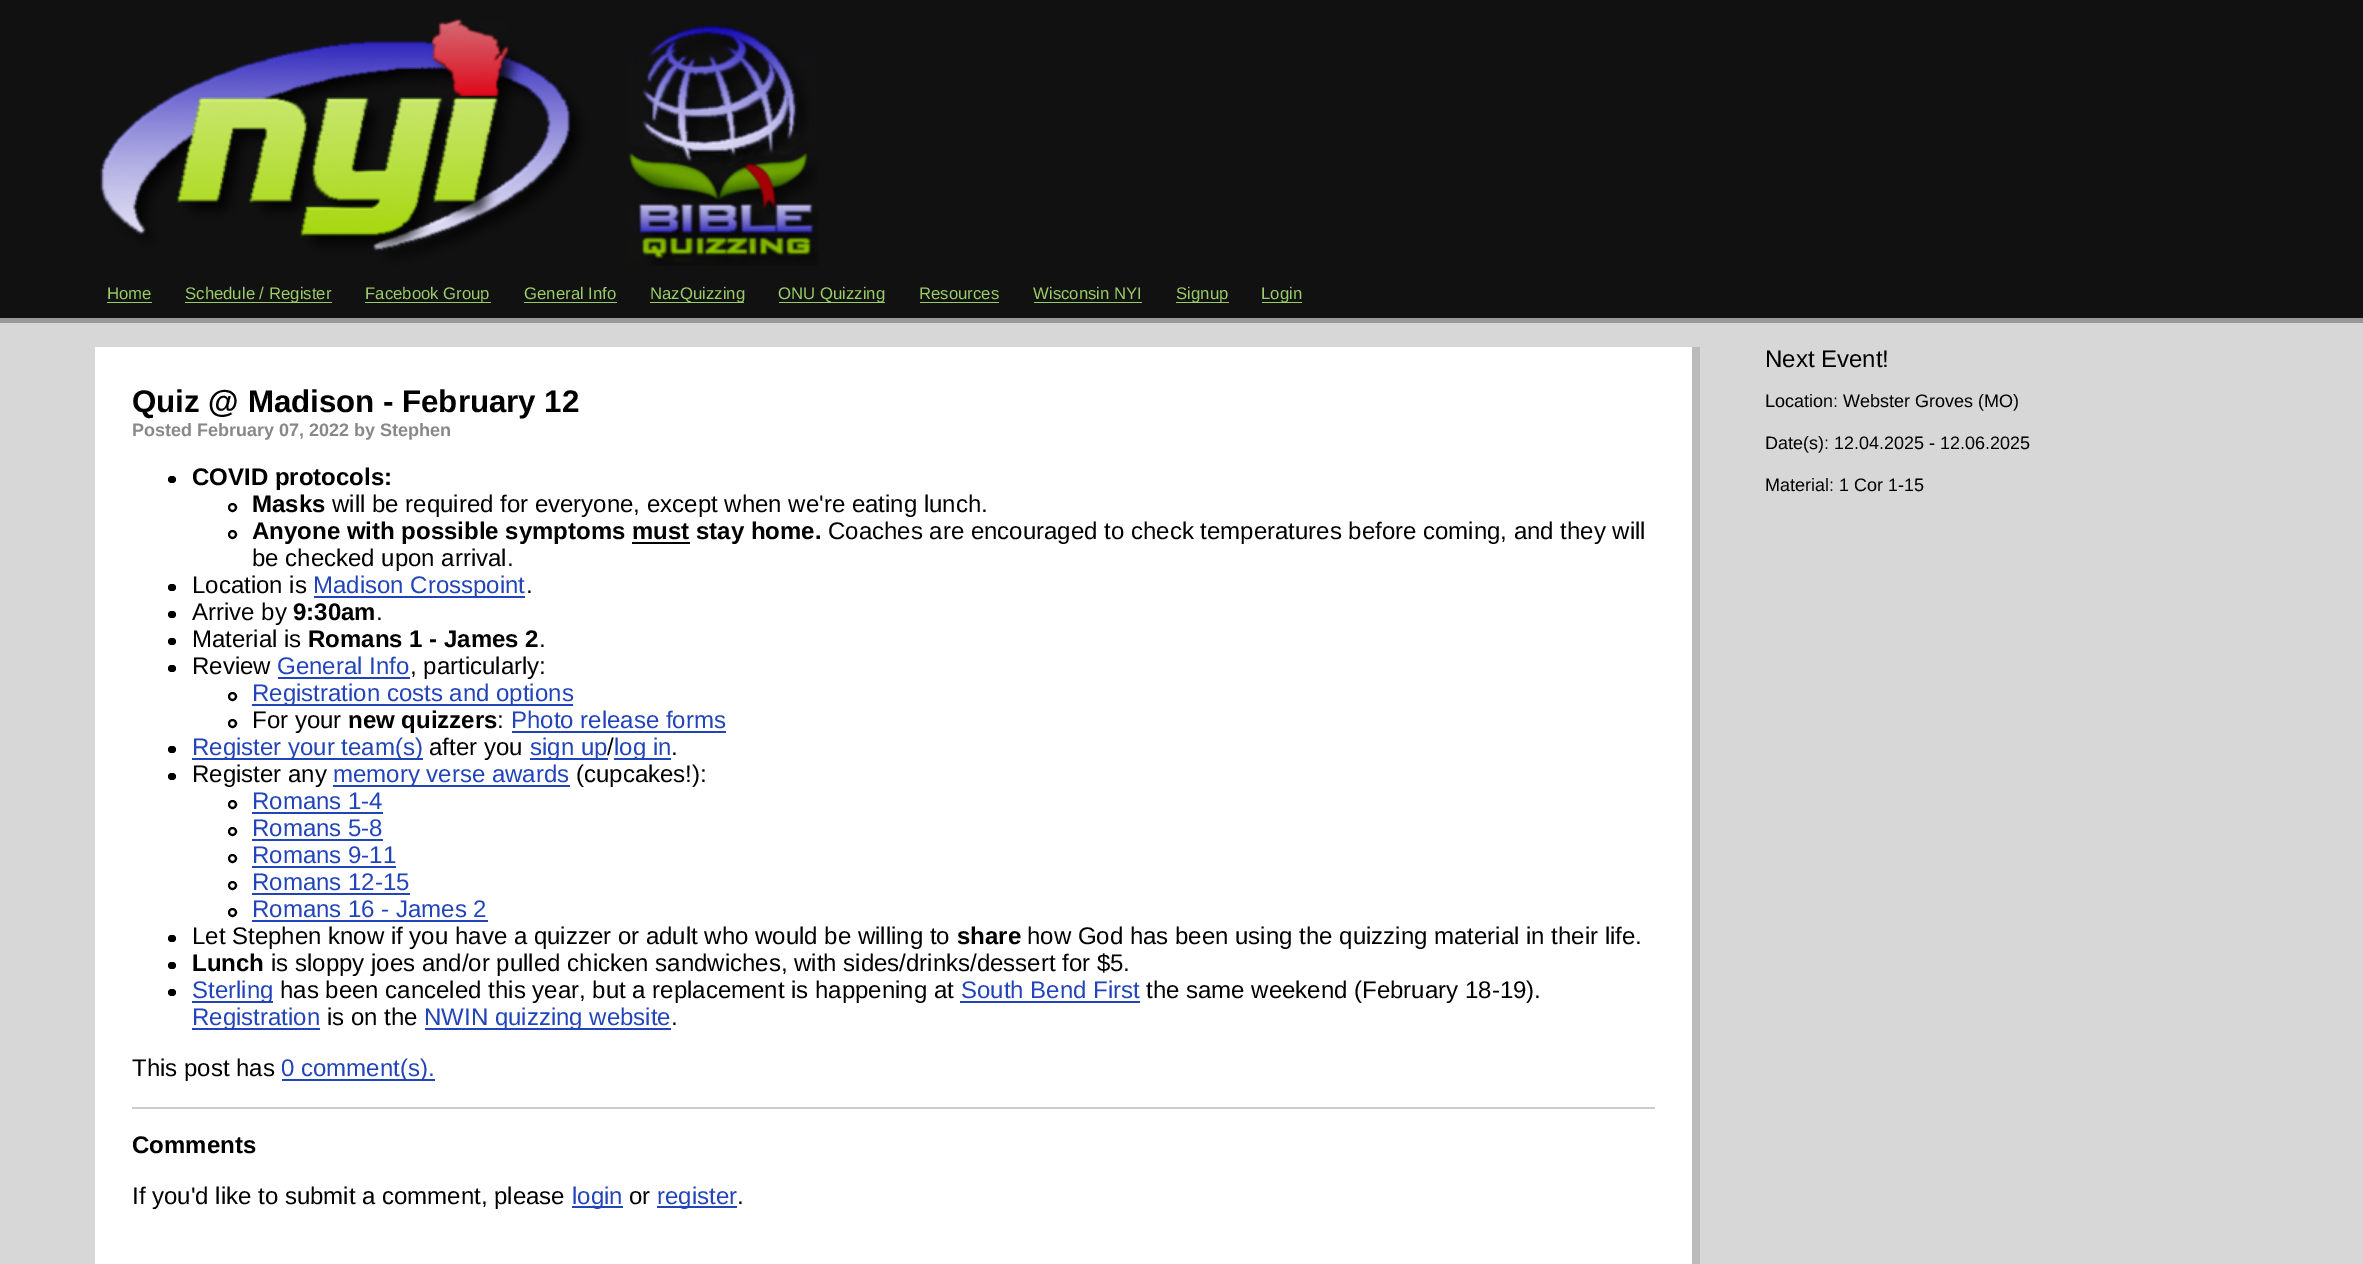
%!PS
<< /PageSize [2363 1264] >> setpagedevice
/roundrect { 5 dict begin { /r /h /w /y /x } { exch def } forall
  x r add y moveto x w add y 2 copy h add r arct x w add y h add x 1 index r arct
  x y h add x y r arct x y 2 copy exch w add exch r arct closepath end } def
/picture { 5 dict begin { /h /w /y /x /name } { exch def } forall
  gsave x y translate w h scale
  w h 8 [w 0 0 h 0 0] name (r) file false 3 colorimage grestore end } def
0 1264 translate 1 -1 scale
4 setmiterlimit
0.843 setgray
0 0 2363 1264 rectfill
0.067 setgray
0 0 2363 318 rectfill
0.6 setgray
0 318 2363 5 rectfill
(img1.rgb) 100 19 719 247 picture
/LiberationSans-Regular [16.75 0 0 -16.75 0 0] selectfont
0.6 0.8 0.4 setrgbcolor
107 299 moveto (Home) show
107 302 45 1 rectfill
185 302 147 1 rectfill
185 299 moveto (Schedule / Register) show
365 302 126 1 rectfill
365 299 moveto (Facebook Group) show
524 299 moveto (General Info) show
524 302 93 1 rectfill
650 302 94 1 rectfill
650 299 moveto (NazQuizzing) show
779 302 106 1 rectfill
778 299 moveto (ONU Quizzing) show
919 299 moveto (Resources) show
920 302 79 1 rectfill
1033 299 moveto (Wisconsin NYI) show
1034 302 108 1 rectfill
1176 302 53 1 rectfill
1176 299 moveto (Signup) show
1262 302 40 1 rectfill
1261 299 moveto (Login) show
1 setgray
95 347 1597 917 rectfill
0.733 setgray
1692 347 8 917 rectfill
/LiberationSans-Bold [31.25 0 0 -31.25 0 0] selectfont
0 setgray
132 412 moveto (Quiz @ Madison - February 12) show
/LiberationSans-Bold [18 0 0 -18 0 0] selectfont
0.533 setgray
132 436 moveto (Posted February 07, 2022 by Stephen) show
0 setgray
168 476 8 7 3.5 roundrect fill
/LiberationSans-Bold [24 0 0 -24 0 0] selectfont
192 485 moveto (COVID protocols:) show
2 setlinewidth
newpath 232.5 507.5 3.5 0 360 arc closepath stroke
252 512 moveto (Masks) show
/LiberationSans-Regular [24 0 0 -24 0 0] selectfont
332 512 moveto (will be required for everyone, except when we're eating lunch.) show
newpath 232.5 534.5 3.5 0 360 arc closepath stroke
/LiberationSans-Bold [24 0 0 -24 0 0] selectfont
252 539 moveto (Anyone with possible symptoms must stay home.) show
632 542 58 2 rectfill
/LiberationSans-Regular [24 0 0 -24 0 0] selectfont
828 539 moveto (Coaches are encouraged to check temperatures before coming, and they will) show
252 566 moveto (be checked upon arrival.) show
168 584 8 7 3.5 roundrect fill
192 593 moveto (Location is) show
0.133 0.267 0.733 setrgbcolor
314 596 211 2 rectfill
313 593 moveto (Madison Crosspoint) show
0 setgray
526 593 moveto (.) show
168 611 8 7 3.5 roundrect fill
192 620 moveto (Arrive by) show
/LiberationSans-Bold [24 0 0 -24 0 0] selectfont
293 620 moveto (9:30am) show
/LiberationSans-Regular [24 0 0 -24 0 0] selectfont
376 620 moveto (.) show
168 638 8 7 3.5 roundrect fill
192 647 moveto (Material is) show
/LiberationSans-Bold [24 0 0 -24 0 0] selectfont
308 647 moveto (Romans 1 - James 2) show
/LiberationSans-Regular [24 0 0 -24 0 0] selectfont
539 647 moveto (.) show
168 665 8 7 3.5 roundrect fill
192 674 moveto (Review) show
0.133 0.267 0.733 setrgbcolor
277 674 moveto (General Info) show
278 677 132 2 rectfill
0 setgray
410 674 moveto (, particularly:) show
newpath 232.5 696.5 3.5 0 360 arc closepath stroke
0.133 0.267 0.733 setrgbcolor
252 704 321 2 rectfill
252 701 moveto (Registration costs and options) show
0 setgray
newpath 232.5 723.5 3.5 0 360 arc closepath stroke
252 728 moveto (For your) show
/LiberationSans-Bold [24 0 0 -24 0 0] selectfont
348 728 moveto (new quizzers) show
/LiberationSans-Regular [24 0 0 -24 0 0] selectfont
497 728 moveto (:) show
0.133 0.267 0.733 setrgbcolor
511 728 moveto (Photo release forms) show
512 731 214 2 rectfill
0 setgray
168 746 8 7 3.5 roundrect fill
0.133 0.267 0.733 setrgbcolor
192 758 231 2 rectfill
192 755 moveto (Register your team\(s\)) show
0 setgray
429 755 moveto (after you) show
0.133 0.267 0.733 setrgbcolor
530 758 78 2 rectfill
530 755 moveto (sign up) show
0 setgray
607 755 moveto (/) show
0.133 0.267 0.733 setrgbcolor
614 758 57 2 rectfill
614 755 moveto (log in) show
0 setgray
671 755 moveto (.) show
168 773 8 7 3.5 roundrect fill
192 782 moveto (Register any) show
0.133 0.267 0.733 setrgbcolor
333 785 237 2 rectfill
333 782 moveto (memory verse awards) show
0 setgray
576 782 moveto (\(cupcakes!\):) show
newpath 232.5 804.5 3.5 0 360 arc closepath stroke
0.133 0.267 0.733 setrgbcolor
252 809 moveto (Romans 1-4) show
252 812 131 2 rectfill
0 setgray
newpath 232.5 831.5 3.5 0 360 arc closepath stroke
0.133 0.267 0.733 setrgbcolor
252 836 moveto (Romans 5-8) show
252 839 131 2 rectfill
0 setgray
newpath 232.5 858.5 3.5 0 360 arc closepath stroke
0.133 0.267 0.733 setrgbcolor
252 863 moveto (Romans 9-11) show
252 866 144 2 rectfill
0 setgray
newpath 232.5 885.5 3.5 0 360 arc closepath stroke
0.133 0.267 0.733 setrgbcolor
252 890 moveto (Romans 12-15) show
252 893 158 2 rectfill
0 setgray
newpath 232.5 912.5 3.5 0 360 arc closepath stroke
0.133 0.267 0.733 setrgbcolor
252 917 moveto (Romans 16 - James 2) show
252 920 236 2 rectfill
0 setgray
168 935 8 7 3.5 roundrect fill
192 944 moveto (Let Stephen know if you have a quizzer or adult who would be willing to) show
/LiberationSans-Bold [24 0 0 -24 0 0] selectfont
957 944 moveto (share) show
/LiberationSans-Regular [24 0 0 -24 0 0] selectfont
1027 944 moveto (how God has been using the quizzing material in their life.) show
168 962 8 7 3.5 roundrect fill
/LiberationSans-Bold [24 0 0 -24 0 0] selectfont
192 971 moveto (Lunch) show
/LiberationSans-Regular [24 0 0 -24 0 0] selectfont
271 971 moveto (is sloppy joes and/or pulled chicken sandwiches, with sides/drinks/dessert for $5.) show
168 989 8 7 3.5 roundrect fill
0.133 0.267 0.733 setrgbcolor
192 1001 81 2 rectfill
192 998 moveto (Sterling) show
0 setgray
280 998 moveto (has been canceled this year, but a replacement is happening at) show
0.133 0.267 0.733 setrgbcolor
961 998 moveto (South Bend First) show
960 1001 180 2 rectfill
0 setgray
1146 998 moveto (the same weekend \(February 18-19\).) show
0.133 0.267 0.733 setrgbcolor
192 1028 128 2 rectfill
192 1025 moveto (Registration) show
0 setgray
327 1025 moveto (is on the) show
0.133 0.267 0.733 setrgbcolor
425 1028 246 2 rectfill
424 1025 moveto (NWIN quizzing website) show
0 setgray
671 1025 moveto (.) show
132 1076 moveto (This post has) show
0.133 0.267 0.733 setrgbcolor
282 1079 153 2 rectfill
281 1076 moveto (0 comment\(s\).) show
0.8 setgray
132 1107 1523 2 rectfill
/LiberationSans-Bold [24 0 0 -24 0 0] selectfont
0 setgray
132 1153 moveto (Comments) show
/LiberationSans-Regular [24 0 0 -24 0 0] selectfont
132 1204 moveto (If you'd like to submit a comment, please) show
0.133 0.267 0.733 setrgbcolor
572 1206 51 2 rectfill
572 1204 moveto (login) show
0 setgray
629 1204 moveto (or) show
0.133 0.267 0.733 setrgbcolor
657 1206 80 2 rectfill
657 1204 moveto (register) show
0 setgray
737 1204 moveto (.) show
1765 367 moveto (Next Event!) show
/LiberationSans-Regular [18 0 0 -18 0 0] selectfont
1765 407 moveto (Location: Webster Groves \(MO\)) show
1765 449 moveto (Date\(s\): 12.04.2025 - 12.06.2025) show
1765 491 moveto (Material: 1 Cor 1-15) show
showpage
